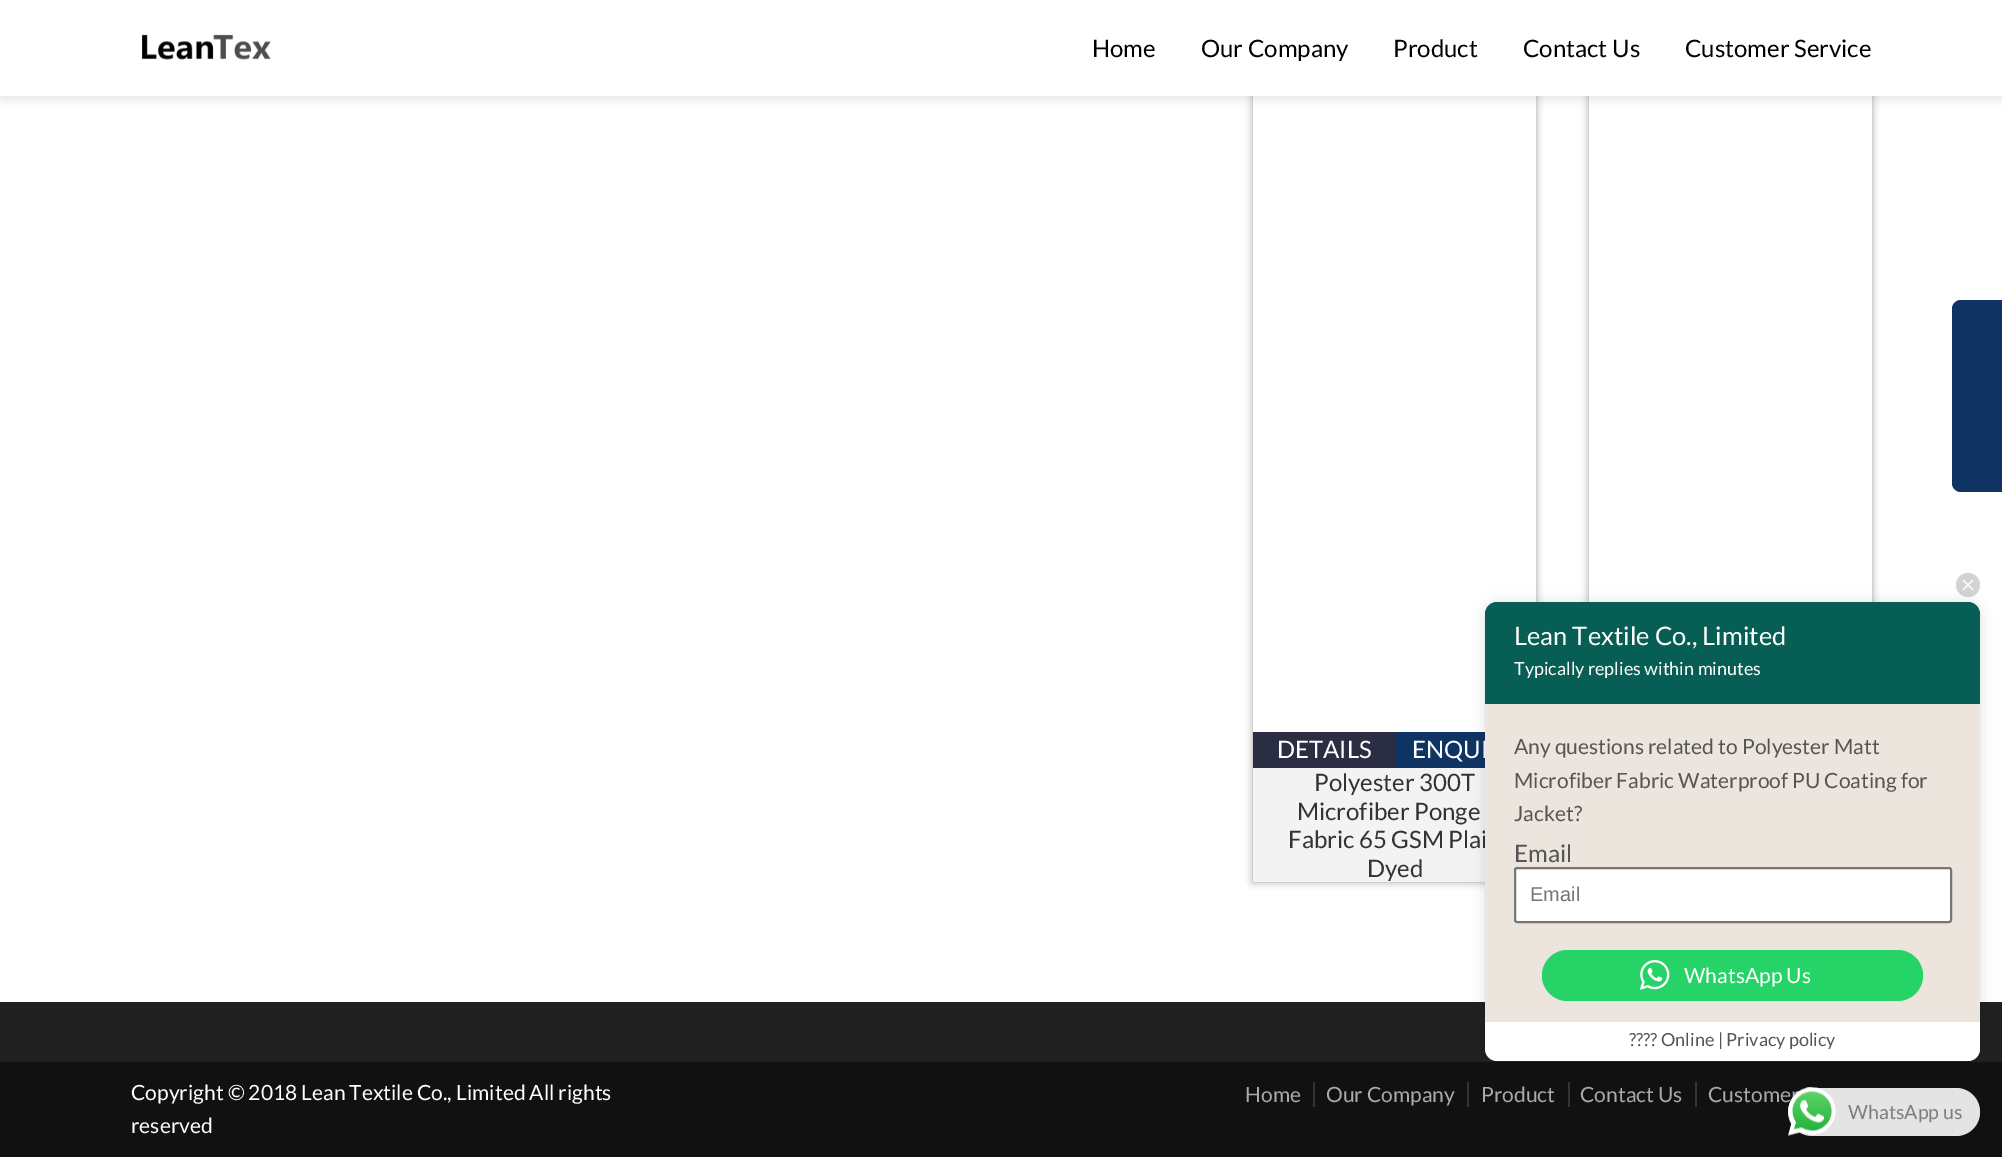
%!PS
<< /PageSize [2002 1157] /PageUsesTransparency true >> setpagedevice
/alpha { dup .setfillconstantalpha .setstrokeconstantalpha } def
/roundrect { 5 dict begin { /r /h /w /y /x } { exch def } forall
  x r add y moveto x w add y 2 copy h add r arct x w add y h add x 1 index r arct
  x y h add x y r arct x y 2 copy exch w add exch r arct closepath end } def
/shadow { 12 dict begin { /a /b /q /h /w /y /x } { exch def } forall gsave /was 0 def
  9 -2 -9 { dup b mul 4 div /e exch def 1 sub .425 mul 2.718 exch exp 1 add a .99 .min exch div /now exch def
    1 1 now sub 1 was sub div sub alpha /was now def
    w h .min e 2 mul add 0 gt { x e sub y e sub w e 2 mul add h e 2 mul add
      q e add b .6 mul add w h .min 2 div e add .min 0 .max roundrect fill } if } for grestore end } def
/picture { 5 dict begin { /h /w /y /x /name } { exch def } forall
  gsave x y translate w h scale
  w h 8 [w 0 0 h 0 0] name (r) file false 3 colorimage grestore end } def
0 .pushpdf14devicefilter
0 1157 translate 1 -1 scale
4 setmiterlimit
1 setgray
0 0 2002 1157 rectfill
0.2 setgray
0 5 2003 96 0 4 0.1 shadow
gsave
newpath 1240 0 moveto 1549 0 lineto 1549 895 lineto 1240 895 lineto closepath 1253 -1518 moveto 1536 -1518 lineto 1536 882 lineto 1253 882 lineto closepath eoclip newpath
0.533 setgray
1253 -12 283 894 0 4 0.8 shadow
grestore
gsave
newpath 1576 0 moveto 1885 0 lineto 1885 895 lineto 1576 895 lineto closepath 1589 -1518 moveto 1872 -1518 lineto 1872 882 lineto 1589 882 lineto closepath eoclip newpath
0.533 setgray
1589 -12 283 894 0 4 0.8 shadow
grestore
1 setgray
0 0 2002 96 rectfill
(img1.rgb) 142 34 129 26 picture
/Lato-Regular [24 0 0 -24 0 0] selectfont
0 setgray
1092 57 moveto (Home) show
1201 57 moveto (Our Company) show
1393 57 moveto (Product) show
1523 57 moveto (Contact Us) show
1685 57 moveto (Customer Service) show
0.059 0.204 0.388 setrgbcolor
newpath 1961 300 moveto 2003 300 lineto 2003 492 lineto 1961 492 lineto 1956 492 1952 488 1952 483 curveto 1952 309 lineto 1952 304 1956 300 1961 300 curveto closepath fill
0.169 0.176 0.259 setrgbcolor
1253 732 142 36 rectfill
1 setgray
1277 758 moveto (DETAILS) show
0.059 0.204 0.388 setrgbcolor
1395 732 90 36 rectfill
1 setgray
1412 758 moveto (ENQUI) show
0.953 setgray
1253 768 232 114 rectfill
0.2 setgray
1314 791 moveto (Polyester 300T) show
1297 820 moveto (Microfiber Ponge) show
1288 848 moveto (Fabric 65 GSM Plai) show
1367 877 moveto (Dyed) show
0.827 setgray
newpath 1968 585 12 0 360 arc closepath fill
(img2.rgb) 1962 579 12 12 picture
0.129 setgray
0 1002 2002 60 rectfill
0.067 setgray
0 1062 2002 95 rectfill
0.204 setgray
1467 1082 2 25 rectfill
1568 1082 2 25 rectfill
1695 1082 2 25 rectfill
0 setgray
1485 603 495 459 12 7 0.14 shadow
0.027 0.369 0.329 setrgbcolor
newpath 1497 602 moveto 1968 602 lineto 1974.5 602 1980 607.5 1980 614 curveto 1980 705 lineto 1485 705 lineto 1485 614 lineto 1485 607.5 1490.5 602 1497 602 curveto closepath fill
/Lato-Regular [25.5 0 0 -25.5 0 0] selectfont
1 setgray
1514 645 moveto (Lean Textile Co., Limited) show
/Lato-Regular [18 0 0 -18 0 0] selectfont
1514 675 moveto (Typically replies within minutes) show
0.925 0.898 0.867 setrgbcolor
1485 704 495 318 rectfill
/Lato-Regular [21 0 0 -21 0 0] selectfont
0.333 setgray
1514 754 moveto (Any questions related to Polyester Matt) show
1514 788 moveto (Microfiber Fabric Waterproof PU Coating for) show
1514 821 moveto (Jacket?) show
/Lato-Regular [24 0 0 -24 0 0] selectfont
1514 862 moveto (Email) show
1 setgray
1515 868 436 54 2 roundrect gsave fill grestore
0.463 setgray
2 setlinewidth
stroke
/LiberationSans-Regular [20 0 0 -20 0 0] selectfont
0.459 setgray
1530 901 moveto (Email) show
0.145 0.827 0.4 setrgbcolor
1542 950 381 51 25.5 roundrect fill
(img3.rgb) 1640 960 30 30 picture
/Lato-Regular [21 0 0 -21 0 0] selectfont
1 setgray
1684 983 moveto (WhatsApp Us) show
newpath 1485 1022 moveto 1980 1022 lineto 1980 1049 lineto 1980 1055.5 1974.5 1061 1968 1061 curveto 1497 1061 lineto 1490.5 1061 1485 1055.5 1485 1049 curveto closepath fill
/Lato-Regular [18 0 0 -18 0 0] selectfont
0.333 setgray
1629 1046 moveto (???? Online | Privacy policy) show
/Lato-Regular [21 0 0 -21 0 0] selectfont
0.667 setgray
1708 1102 moveto (Custome) show
0.894 setgray
1788 1088 192 48 24 roundrect fill
(img4.rgb) 1788 1087 48 49 picture
/Lato-Regular [19.5 0 0 -19.5 0 0] selectfont
0.498 0.49 0.49 setrgbcolor
1848 1119 moveto (WhatsApp us) show
/Lato-Regular [21 0 0 -21 0 0] selectfont
1 setgray
131 1100 moveto (Copyright © 2018 Lean Textile Co., Limited All rights) show
131 1133 moveto (reserved) show
0.667 setgray
1245 1102 moveto (Home) show
1326 1102 moveto (Our Company) show
0.204 setgray
1313 1082 2 25 rectfill
0.667 setgray
1481 1102 moveto (Product) show
1580 1102 moveto (Contact Us) show
.poppdf14devicefilter showpage
